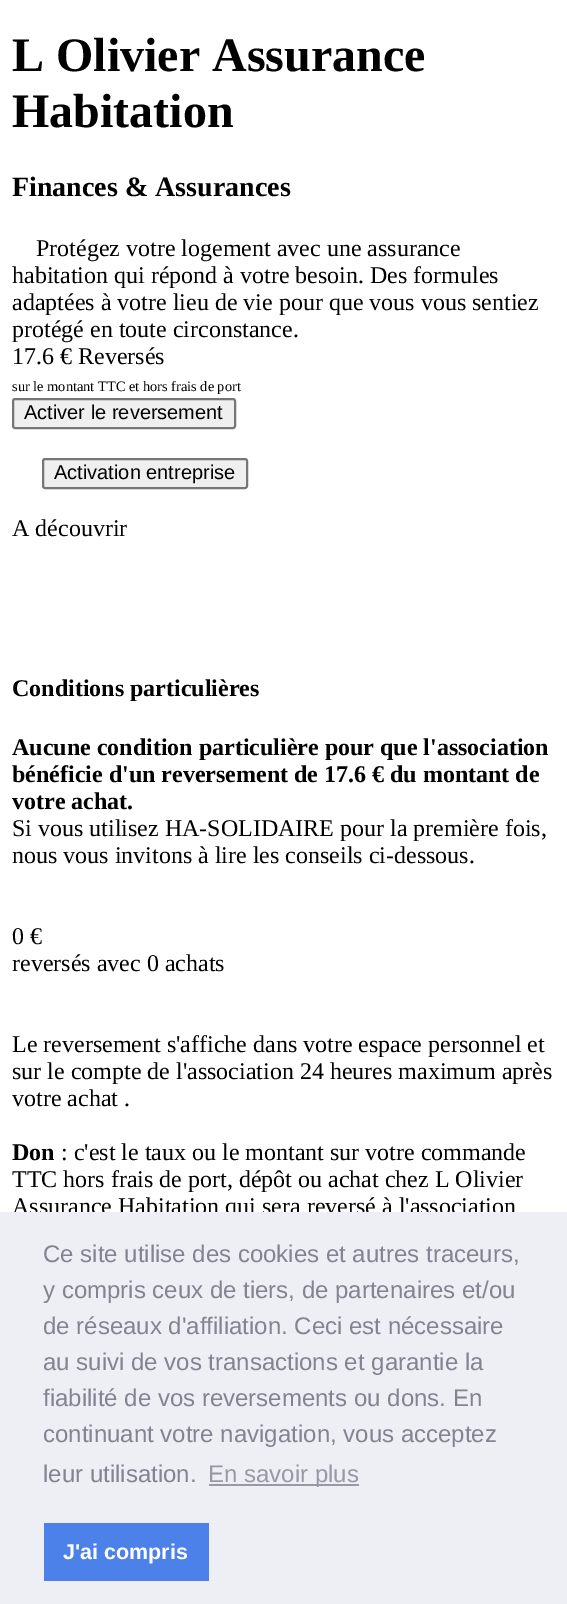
%!PS
<< /PageSize [567 1604] >> setpagedevice
/roundrect { 5 dict begin { /r /h /w /y /x } { exch def } forall
  x r add y moveto x w add y 2 copy h add r arct x w add y h add x 1 index r arct
  x y h add x y r arct x y 2 copy exch w add exch r arct closepath end } def
0 1604 translate 1 -1 scale
4 setmiterlimit
1 setgray
0 0 567 1604 rectfill
/LiberationSerif-Bold [48 0 0 -48 0 0] selectfont
0 setgray
12 71 moveto (L Olivier Assurance) show
12 127 moveto (Habitation) show
/LiberationSerif-Bold [28 0 0 -28 0 0] selectfont
12 196 moveto (Finances & Assurances) show
/LiberationSerif-Regular [24 0 0 -24 0 0] selectfont
36 256 moveto (Protégez votre logement avec une assurance) show
12 283 moveto (habitation qui répond à votre besoin. Des formules) show
12 310 moveto (adaptées à votre lieu de vie pour que vous vous sentiez) show
12 337 moveto (protégé en toute circonstance.) show
12 364 moveto (17.6 € Reversés) show
/LiberationSerif-Regular [14.4 0 0 -14.4 0 0] selectfont
12 391 moveto (sur le montant TTC et hors frais de port) show
0.937 setgray
13 399 222 29 2 roundrect gsave fill grestore
0.463 setgray
2 setlinewidth
stroke
/LiberationSans-Regular [20 0 0 -20 0 0] selectfont
0 setgray
24 419 moveto (Activer le reversement) show
0.937 setgray
43 459 204 29 2 roundrect gsave fill grestore
0.463 setgray
stroke
0 setgray
54 479 moveto (Activation entreprise) show
/LiberationSerif-Regular [24 0 0 -24 0 0] selectfont
12 536 moveto (A découvrir) show
/LiberationSerif-Bold [24 0 0 -24 0 0] selectfont
12 696 moveto (Conditions particulières) show
12 755 moveto (Aucune condition particulière pour que l'association) show
12 782 moveto (bénéficie d'un reversement de 17.6 € du montant de) show
12 809 moveto (votre achat.) show
/LiberationSerif-Regular [24 0 0 -24 0 0] selectfont
12 836 moveto (Si vous utilisez HA-SOLIDAIRE pour la première fois,) show
12 863 moveto (nous vous invitons à lire les conseils ci-dessous.) show
12 944 moveto (0 €) show
12 971 moveto (reversés avec 0 achats) show
12 1052 moveto (Le reversement s'affiche dans votre espace personnel et) show
12 1079 moveto (sur le compte de l'association 24 heures maximum après) show
12 1106 moveto (votre achat .) show
/LiberationSerif-Bold [24 0 0 -24 0 0] selectfont
12 1160 moveto (Don) show
/LiberationSerif-Regular [24 0 0 -24 0 0] selectfont
61 1160 moveto (: c'est le taux ou le montant sur votre commande) show
12 1187 moveto (TTC hors frais de port, dépôt ou achat chez L Olivier) show
12 1214 moveto (Assurance Habitation qui sera reversé à l'association) show
0.929 0.937 0.961 setrgbcolor
0 1212 567 392 rectfill
/LiberationSans-Regular [24 0 0 -24 0 0] selectfont
0.514 0.514 0.569 setrgbcolor
43 1262 moveto (Ce site utilise des cookies et autres traceurs,) show
43 1298 moveto (y compris ceux de tiers, de partenaires et/ou) show
43 1334 moveto (de réseaux d'affiliation. Ceci est nécessaire) show
43 1370 moveto (au suivi de vos transactions et garantie la) show
43 1406 moveto (fiabilité de vos reversements ou dons. En) show
43 1442 moveto (continuant votre navigation, vous acceptez) show
43 1482 moveto (leur utilisation.) show
0.596 0.6 0.647 setrgbcolor
209 1484 150 2 rectfill
208 1482 moveto (En savoir plus) show
0.294 0.506 0.91 setrgbcolor
44 1523 165 58 rectfill
/LiberationSans-Bold [21.5 0 0 -21.5 0 0] selectfont
1 setgray
63 1559 moveto (J'ai compris) show
showpage
